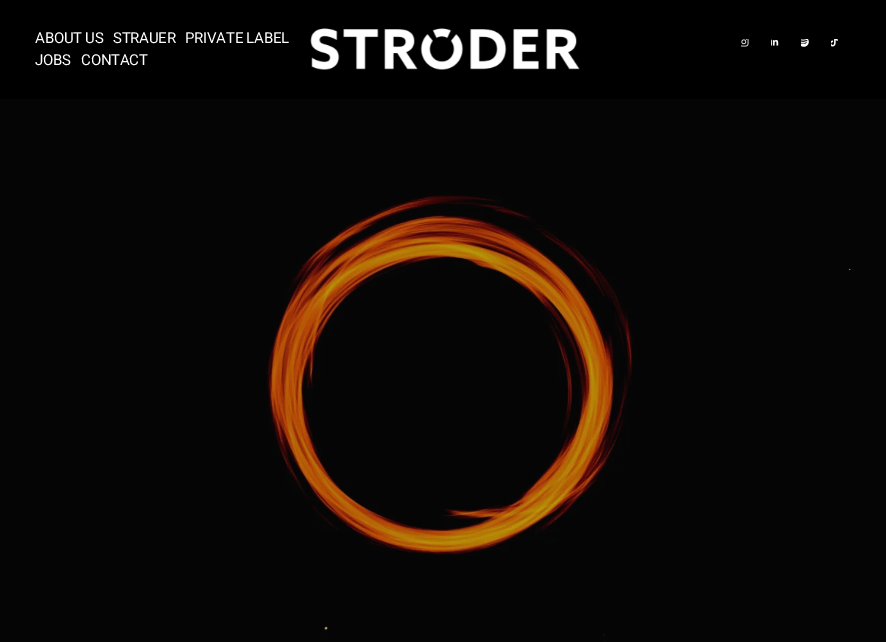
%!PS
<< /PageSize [886 642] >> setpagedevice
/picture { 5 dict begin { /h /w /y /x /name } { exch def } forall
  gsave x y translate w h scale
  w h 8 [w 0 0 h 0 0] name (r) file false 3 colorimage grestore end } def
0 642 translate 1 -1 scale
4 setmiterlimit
1 setgray
0 0 886 642 rectfill
0 setgray
0 0 886 99 rectfill
/Roboto-Regular [15 0 0 -15 0 0] selectfont
1 setgray
35 43 moveto -0.25 0 (ABOUT US) ashow
113 43 moveto -0.25 0 (STRAUER) ashow
185 43 moveto -0.25 0 (PRIVATE LABEL) ashow
35 65 moveto -0.25 0 (JOBS) ashow
81 65 moveto -0.25 0 (CONTACT) ashow
(img1.rgb) 310 28 270 42 picture
(img2.rgb) 741 39 8 8 picture
(img3.rgb) 771 39 8 7 picture
(img4.rgb) 801 39 8 8 picture
(img5.rgb) 831 39 7 8 picture
(img6.rgb) 0 99 886 543 picture
showpage
